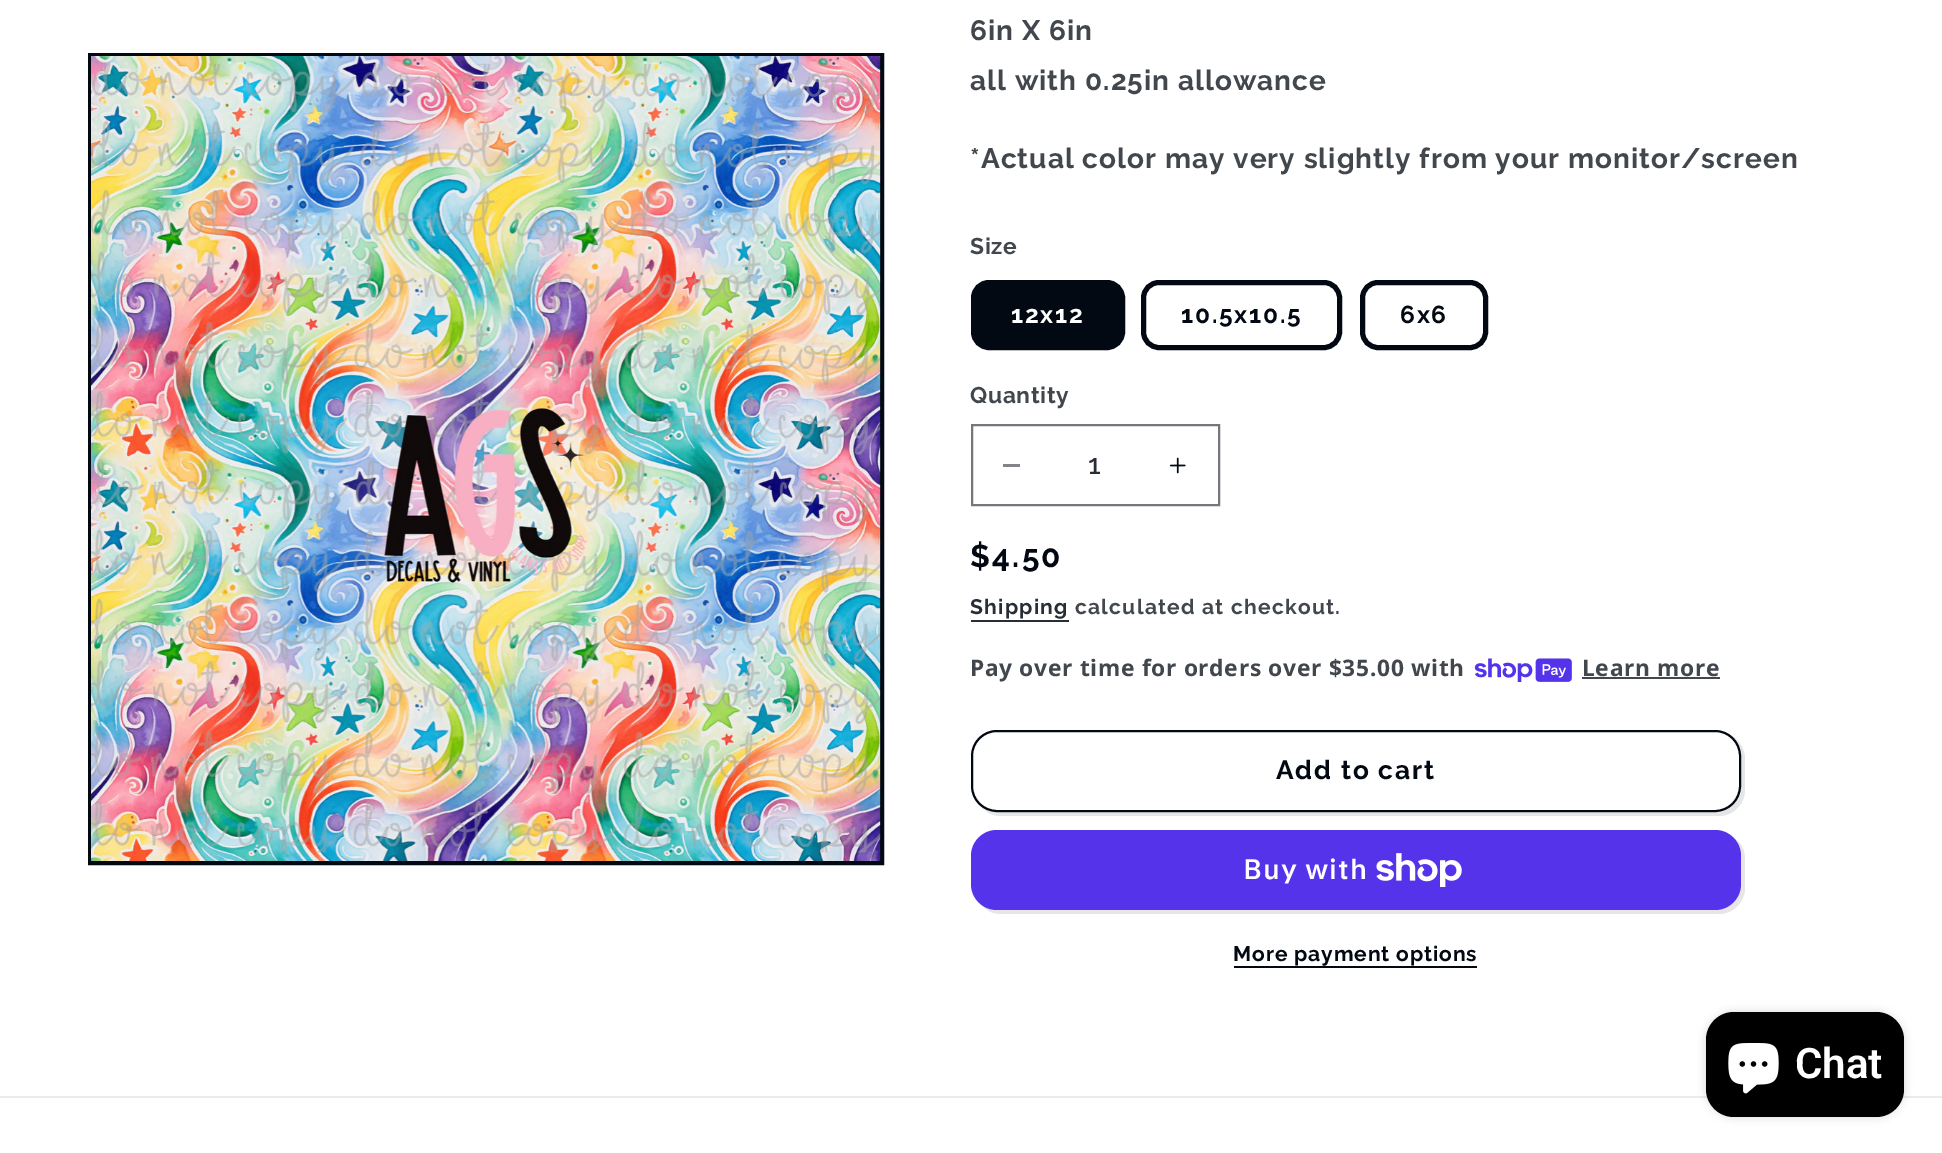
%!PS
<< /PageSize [1942 1153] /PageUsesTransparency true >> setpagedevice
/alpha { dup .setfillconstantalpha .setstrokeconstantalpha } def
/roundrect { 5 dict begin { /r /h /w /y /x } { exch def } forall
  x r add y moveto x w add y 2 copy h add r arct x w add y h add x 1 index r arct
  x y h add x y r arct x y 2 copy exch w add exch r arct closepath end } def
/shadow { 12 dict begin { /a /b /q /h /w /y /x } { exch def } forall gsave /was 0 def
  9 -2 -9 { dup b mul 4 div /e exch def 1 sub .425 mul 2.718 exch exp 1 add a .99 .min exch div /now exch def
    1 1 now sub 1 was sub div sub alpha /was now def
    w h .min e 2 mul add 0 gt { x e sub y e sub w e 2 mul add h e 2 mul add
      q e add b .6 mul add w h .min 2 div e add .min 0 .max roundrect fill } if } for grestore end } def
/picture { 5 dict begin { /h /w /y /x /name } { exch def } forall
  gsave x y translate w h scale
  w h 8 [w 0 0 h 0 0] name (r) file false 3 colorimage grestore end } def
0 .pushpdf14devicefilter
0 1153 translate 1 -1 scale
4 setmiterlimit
1 setgray
0 0 1942 1153 rectfill
0.008 0.035 0.071 setrgbcolor
4 setlinewidth
90 55 792 808 rectstroke
(img1.rgb) 91 56 790 805 picture
/Raleway-Bold [28 0 0 -28 0 0] selectfont
0.255 0.278 0.302 setrgbcolor
970 40 moveto 1.05 0 (6in X 6in) ashow
970 90 moveto 1.05 0 (all with 0.25in allowance) ashow
970 168 moveto 1.05 0 (*Actual color may very slightly from your monitor/screen) ashow
/Raleway-Bold [22.75 0 0 -22.75 0 0] selectfont
970 254 moveto 0.7 0 (Size) ashow
0.008 0.035 0.071 setrgbcolor
973.5 282.5 149 65 15.5 roundrect gsave fill grestore
5 setlinewidth
stroke
/Raleway-Bold [24.5 0 0 -24.5 0 0] selectfont
1 setgray
1011 323 moveto 1.75 0 (12x12) ashow
0.008 0.035 0.071 setrgbcolor
1143.5 282.5 196 65 15.5 roundrect stroke
1181 323 moveto 1.75 0 (10.5x10.5) ashow
1362.5 282.5 123 65 15.5 roundrect stroke
1400 323 moveto 1.75 0 (6x6) ashow
/Raleway-Bold [22.75 0 0 -22.75 0 0] selectfont
0.255 0.278 0.302 setrgbcolor
970 403 moveto 0.7 0 (Quantity) ashow
0.506 0.518 0.537 setrgbcolor
1003 464 17 3 rectfill
(img2.rgb) 1169 457 17 17 picture
0.455 0.471 0.49 setrgbcolor
2 setlinewidth
972 425 247 80 rectstroke
/Raleway-Medium [28 0 0 -28 0 0] selectfont
0.157 0.18 0.212 setrgbcolor
1088 474 moveto (1) show
/Raleway-Bold [31.5 0 0 -31.5 0 0] selectfont
0.008 0.035 0.071 setrgbcolor
970 567 moveto 2.25 0 ($4.50) ashow
/Raleway-Bold [21 0 0 -21 0 0] selectfont
0.157 0.18 0.212 setrgbcolor
970 614 moveto 1.25 0 (Shipping) ashow
971 620 98 2 rectfill
0.255 0.278 0.302 setrgbcolor
1075 614 moveto 1.25 0 (calculated at checkout.) ashow
/NotoSans-Bold [22.75 0 0 -22.75 0 0] selectfont
970 676 moveto 0.7 0 (Pay over time for orders over $35.00 with) ashow
(img3.rgb) 1474 658 98 24 picture
1582 676 moveto 0.7 0 (Learn more) ashow
1582 677 138 2 rectfill
0.902 0.902 0.906 setrgbcolor
newpath 980 805 moveto 985 812 992 816 1001 816 curveto 1719 816 lineto 1733 816 1745 804 1745 790 curveto 1745 759 lineto 1745 750 1740 742 1734 737 curveto 1738 742 1741 749 1741 756 curveto 1741 786 lineto 1741 800 1729 812 1715 812 curveto 998 812 lineto 991 812 985 809 980 805 curveto closepath fill
1 setgray
971 730 770 82 26 roundrect fill
972 731 768 80 25 roundrect stroke
0.008 0.035 0.071 setrgbcolor
972 731 768 80 25 roundrect stroke
/Raleway-Bold [26.25 0 0 -26.25 0 0] selectfont
1276 779 moveto 1.75 0 (Add to cart) ashow
0.902 0.902 0.906 setrgbcolor
newpath 980 903 moveto 985 910 992 914 1001 914 curveto 1719 914 lineto 1733 914 1745 902 1745 888 curveto 1745 859 lineto 1745 850 1741 843 1734 838 curveto 1739 843 1741 849 1741 856 curveto 1741 884 lineto 1741 898 1729 910 1715 910 curveto 998 910 lineto 991 910 985 907 980 903 curveto closepath fill
0.329 0.2 0.922 setrgbcolor
971 830 770 80 26 roundrect fill
/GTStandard-SemiBold [28 0 0 -28 0 0] selectfont
1 setgray
1243 879 moveto 1.05 0 (Buy with) ashow
(img4.rgb) 1376 853 86 34 picture
/Raleway-Bold [21 0 0 -21 0 0] selectfont
0.008 0.035 0.071 setrgbcolor
1233 961 moveto 0.9 0 (More payment options) ashow
1234 966 243 2 rectfill
0.922 0.922 0.925 setrgbcolor
0 1096 1942 2 rectfill
0 setgray
1706 1012 198 105 28 4.5 0.15 shadow
1706 1012 198 105 28 roundrect fill
(img5.rgb) 1728 1043 51 51 picture
/Roboto-SemiBold [42 0 0 -42 0 0] selectfont
1 setgray
1795 1078 moveto (Chat) show
.poppdf14devicefilter showpage
